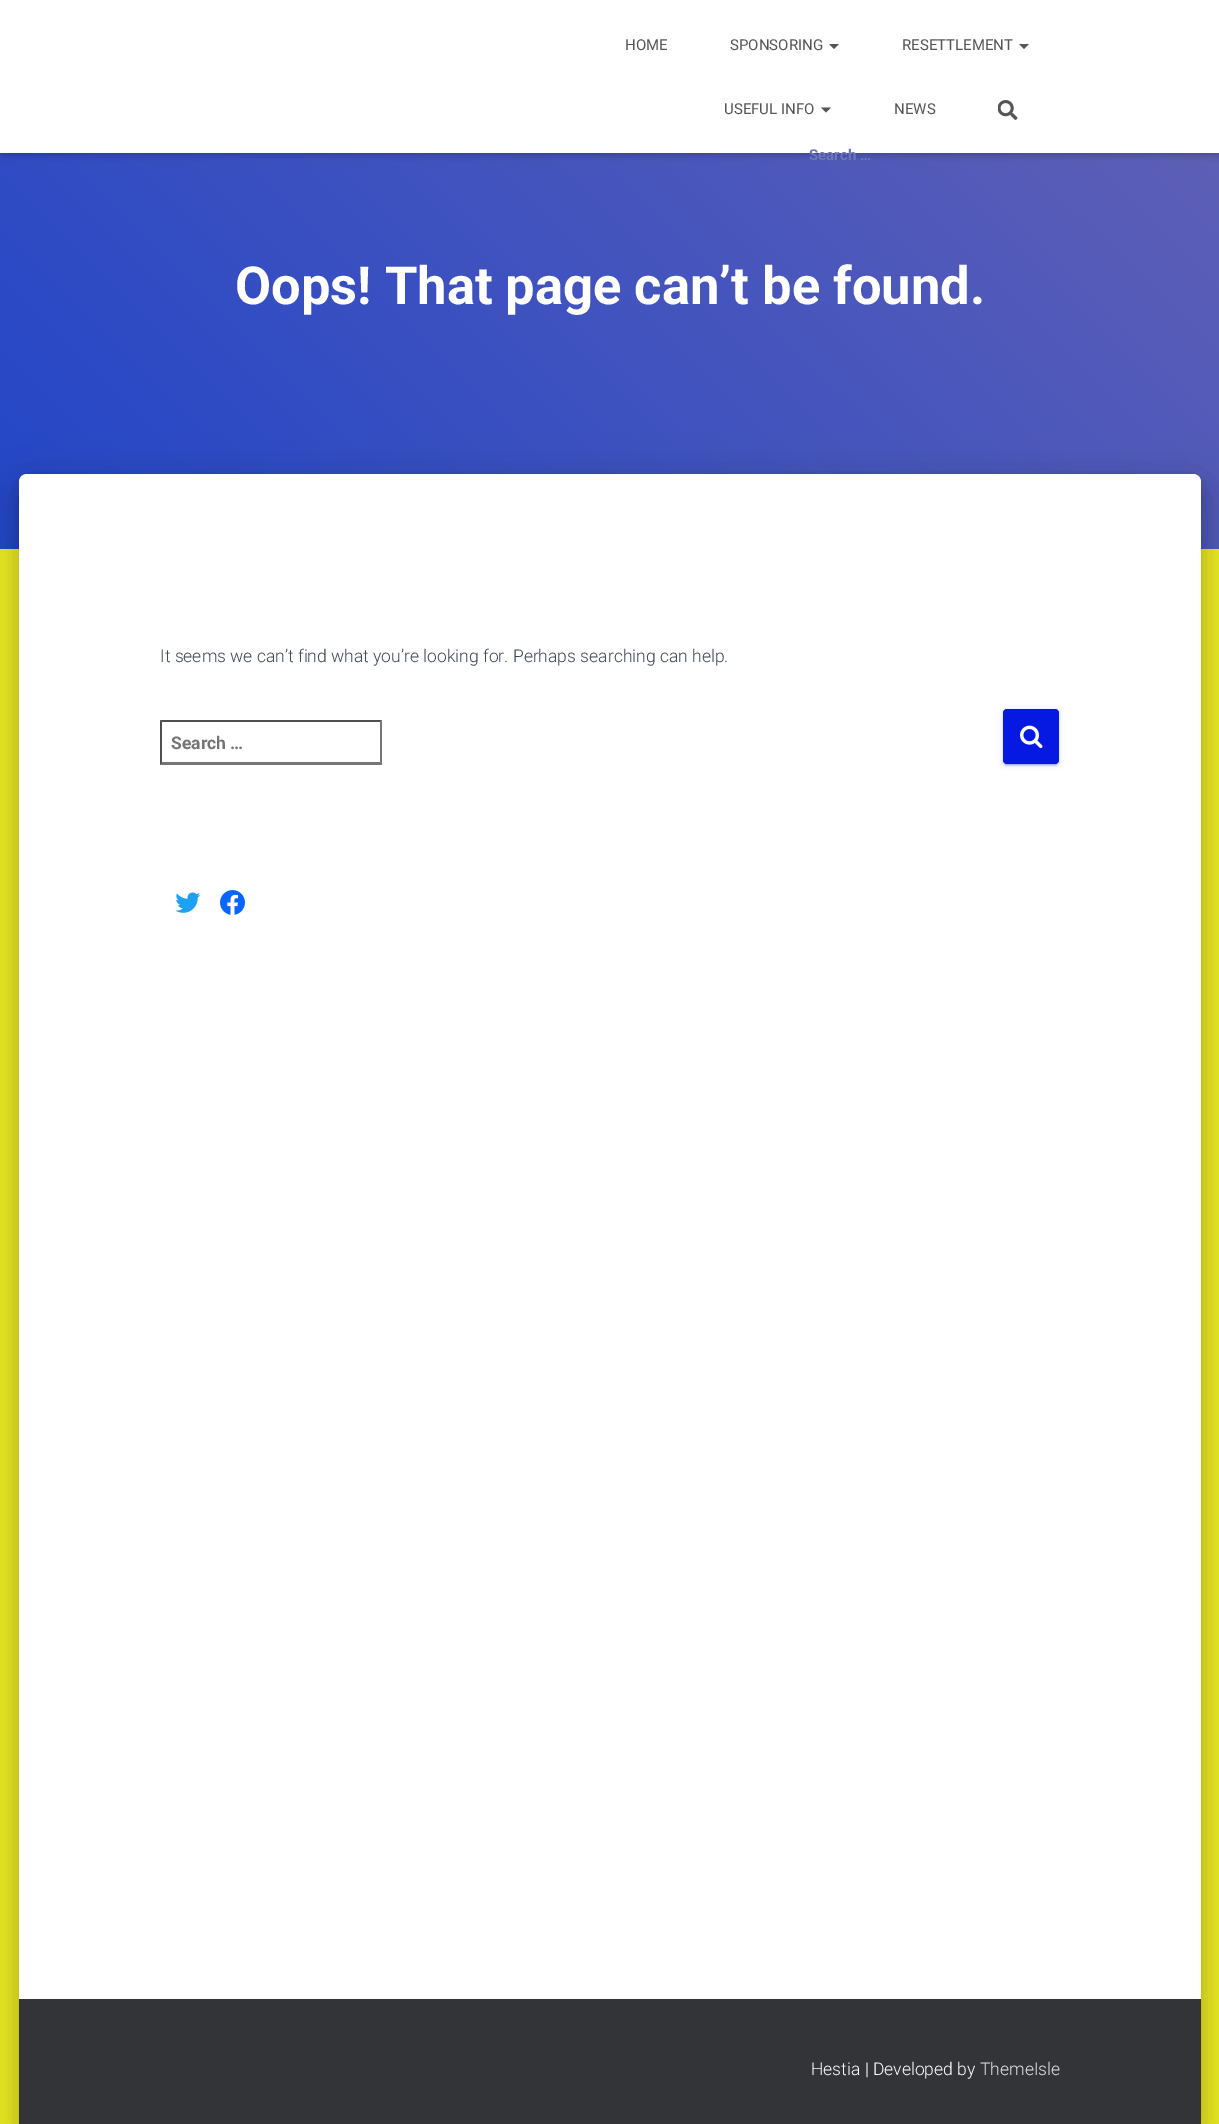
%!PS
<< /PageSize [1219 2124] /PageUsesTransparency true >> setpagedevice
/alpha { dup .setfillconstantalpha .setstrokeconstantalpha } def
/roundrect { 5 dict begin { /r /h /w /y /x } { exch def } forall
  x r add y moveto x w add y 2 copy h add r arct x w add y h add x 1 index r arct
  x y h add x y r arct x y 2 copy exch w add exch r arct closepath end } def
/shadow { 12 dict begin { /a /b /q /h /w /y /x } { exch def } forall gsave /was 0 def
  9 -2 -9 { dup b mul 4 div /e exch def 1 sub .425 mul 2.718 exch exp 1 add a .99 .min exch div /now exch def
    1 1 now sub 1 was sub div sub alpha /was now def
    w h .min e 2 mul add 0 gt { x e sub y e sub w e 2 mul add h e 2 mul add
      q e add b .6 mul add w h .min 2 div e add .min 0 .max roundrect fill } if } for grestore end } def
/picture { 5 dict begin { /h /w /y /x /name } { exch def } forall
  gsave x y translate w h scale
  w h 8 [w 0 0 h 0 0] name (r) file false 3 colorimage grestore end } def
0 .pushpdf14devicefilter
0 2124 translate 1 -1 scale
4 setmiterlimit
0.933 0.933 0.133 setrgbcolor
0 0 1219 2124 rectfill
gsave newpath 0 153 moveto 1219 153 lineto 1219 549 lineto 0 549 lineto closepath clip newpath
<< /ShadingType 2 /ColorSpace /DeviceRGB /Coords [168 717 1052 -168] /Extend [true true] /Function << /FunctionType 2 /Domain [0 1] /C0 [0.133 0.275 0.788] /C1 [0.392 0.384 0.706] /N 1 >> >> shfill grestore
0 setgray
3 8 1215 147 0 3 0.1 shadow
0 1 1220 153 0 6 0.12 shadow
8 9 1205 137 0 6 0.42 shadow
1 setgray
0 0 1219 153 rectfill
/Roboto-Regular [15 0 0 -15 0 0] selectfont
0.333 setgray
625 50 moveto (HOME) show
730 50 moveto (SPONSORING) show
newpath 829 44 moveto 839 44 lineto 834 49 lineto closepath fill
902 50 moveto (RESETTLEMENT) show
newpath 1019 44 moveto 1029 44 lineto 1024 49 lineto closepath fill
724 114 moveto (USEFUL INFO) show
newpath 821 107.5 moveto 831 107.5 lineto 826 112.5 lineto closepath fill
894 114 moveto (NEWS) show
(img1.rgb) 998 100 20 20 picture
/Roboto-Bold [15 0 0 -15 0 0] selectfont
0.431 0.459 0.733 setrgbcolor
809 160 moveto (Search …) show
/Roboto-Bold [52.5 0 0 -52.5 0 0] selectfont
1 setgray
235 304 moveto (Oops! That page can’t be found.) show
0 setgray
25 490 1170 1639 1 6 0.2 shadow
13 475 1195 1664 14 19 0.12 shadow
16 491 1188 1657 10 15 0.14 shadow
1 setgray
newpath 27 474 moveto 1193 474 lineto 1197.5 474 1201 477.5 1201 482 curveto 1201 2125 lineto 19 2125 lineto 19 482 lineto 19 477.5 22.5 474 27 474 curveto closepath fill
/Roboto-Light [17.5 0 0 -17.5 0 0] selectfont
0.235 0.282 0.345 setrgbcolor
160 662 moveto (It seems we can’t find what you’re looking for. Perhaps searching can help.) show
0.31 setgray
newpath 160 720 moveto 382 720 lineto 380 722 lineto 162 722 lineto closepath fill
0.463 setgray
newpath 382 720 moveto 382 765 lineto 380 762 lineto 380 722 lineto closepath fill
newpath 382 765 moveto 160 765 lineto 162 762 lineto 380 762 lineto closepath fill
0.31 setgray
newpath 160 765 moveto 160 720 lineto 162 722 lineto 162 762 lineto closepath fill
/Roboto-Bold [17.5 0 0 -17.5 0 0] selectfont
0.459 setgray
171 749 moveto (Search …) show
0.024 0.098 0.886 setrgbcolor
1003 710 56 55 4 3 0.12 shadow
1005 715 51 50 1 0.5 0.2 shadow
1003 711 56 55 4 1 0.14 shadow
1003 709 56 55 4 roundrect fill
(img2.rgb) 1020 725 23 24 picture
(img3.rgb) 175 892 26 21 picture
(img4.rgb) 220 890 25 25 picture
0.196 0.204 0.216 setrgbcolor
19 1999 1182 125 rectfill
/Roboto-Light [17.5 0 0 -17.5 0 0] selectfont
1 setgray
811 2075 moveto (Hestia | Developed by) show
0.886 0.89 0.89 setrgbcolor
980 2075 moveto (ThemeIsle) show
.poppdf14devicefilter showpage
